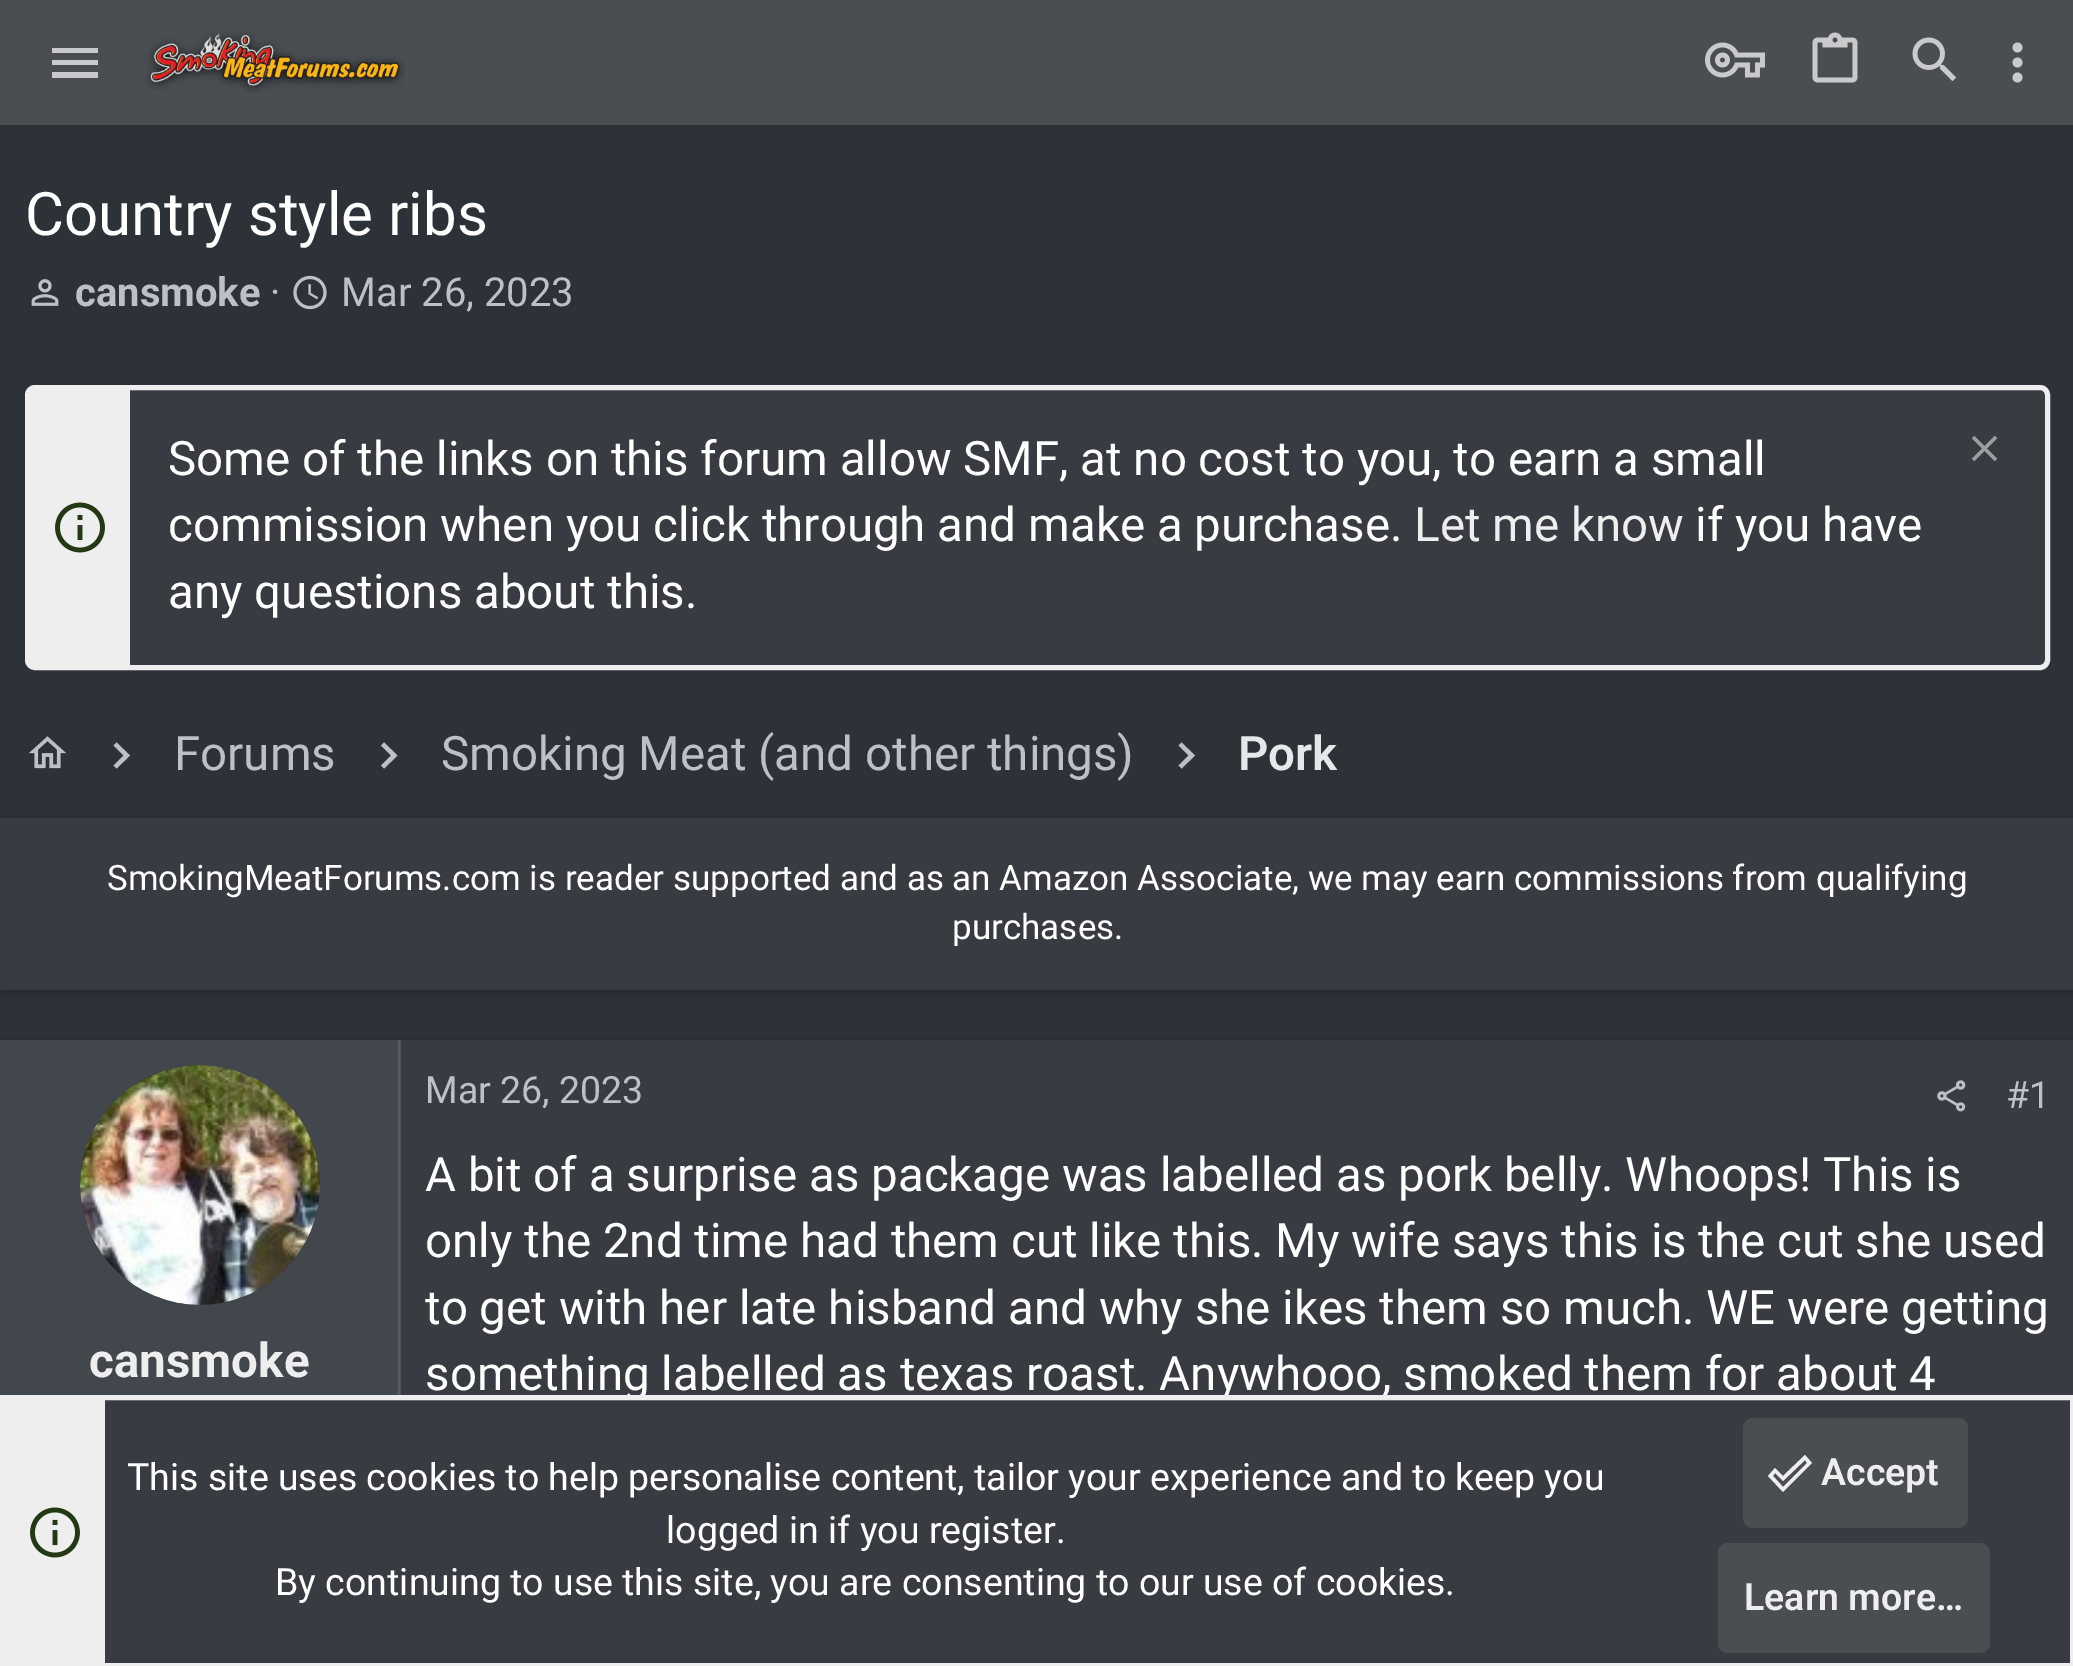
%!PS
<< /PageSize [2073 1666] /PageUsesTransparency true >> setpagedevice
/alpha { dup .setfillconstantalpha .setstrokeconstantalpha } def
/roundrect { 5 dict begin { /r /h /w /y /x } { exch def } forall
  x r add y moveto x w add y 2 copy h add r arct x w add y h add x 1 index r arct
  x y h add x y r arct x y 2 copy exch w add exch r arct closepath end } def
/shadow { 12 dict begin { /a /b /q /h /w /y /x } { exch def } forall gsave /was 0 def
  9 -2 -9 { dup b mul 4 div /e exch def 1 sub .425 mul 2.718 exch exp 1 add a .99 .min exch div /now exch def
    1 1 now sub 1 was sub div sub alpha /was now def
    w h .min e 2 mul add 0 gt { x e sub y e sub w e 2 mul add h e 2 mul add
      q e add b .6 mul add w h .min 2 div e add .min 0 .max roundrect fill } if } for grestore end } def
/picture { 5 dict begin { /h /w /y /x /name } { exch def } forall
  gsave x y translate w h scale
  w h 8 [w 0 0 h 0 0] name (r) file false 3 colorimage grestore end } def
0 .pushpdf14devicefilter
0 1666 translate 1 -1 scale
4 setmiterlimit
0.176 0.196 0.22 setrgbcolor
0 0 2073 1666 rectfill
0.29 0.306 0.325 setrgbcolor
0 0 2073 125 rectfill
0.788 0.792 0.796 setrgbcolor
newpath 52 48 moveto 98 48 lineto 98 53 lineto 52 53 lineto closepath 52 60 moveto 98 60 lineto 98 65 lineto 52 65 lineto closepath 52 72 moveto 98 72 lineto 98 78 lineto 52 78 lineto closepath fill
(img1.rgb) 145 31 260 62 picture
(img2.rgb) 1705 42 60 36 picture
(img3.rgb) 1812 32 46 51 picture
(img4.rgb) 1912 37 45 45 picture
(img5.rgb) 2012 42 11 41 picture
/Roboto-Regular [60 0 0 -60 0 0] selectfont
1 setgray
25 235 moveto (Country style ribs) show
(img6.rgb) 31 279 28 27 picture
/Roboto-Bold [40 0 0 -40 0 0] selectfont
0.737 0.753 0.78 setrgbcolor
75 306 moveto (cansmoke) show
/Roboto-Regular [40 0 0 -40 0 0] selectfont
270 306 moveto (·) show
(img7.rgb) 293 275 34 35 picture
341 306 moveto (Mar 26, 2023) show
0.22 0.235 0.259 setrgbcolor
27.5 387.5 2020 280 7.5 roundrect gsave fill grestore
0.937 0.933 0.933 setrgbcolor
5 setlinewidth
stroke
30 390 100 275 rectfill
(img8.rgb) 55 502 50 51 picture
/Roboto-Regular [47.5 0 0 -47.5 0 0] selectfont
1 setgray
168 475 moveto (Some of the links on this forum allow SMF, at no cost to you, to earn a small) show
(img9.rgb) 1971 435 27 27 picture
168 541 moveto (commission when you click through and make a purchase.) show
0.937 0.933 0.933 setrgbcolor
1414 541 moveto (Let me know) show
1 setgray
1695 541 moveto (if you have) show
168 608 moveto (any questions about this.) show
(img10.rgb) 29 736 37 33 picture
0.737 0.753 0.78 setrgbcolor
newpath 113.5 765.5 moveto 123.5 755.5 lineto 113.5 745.5 lineto 116.5 742.5 lineto 130 755.5 lineto 116.5 768.5 lineto closepath fill
174 770 moveto (Forums) show
newpath 381 765.5 moveto 391 755.5 lineto 381 745.5 lineto 384 742.5 lineto 397.5 755.5 lineto 384 768.5 lineto closepath fill
441 770 moveto (Smoking Meat \(and other things\)) show
newpath 1178.5 765.5 moveto 1188.5 755.5 lineto 1178.5 745.5 lineto 1181.5 742.5 lineto 1195 755.5 lineto 1181.5 768.5 lineto closepath fill
/Roboto-SemiBold [47.5 0 0 -47.5 0 0] selectfont
0.902 0.906 0.918 setrgbcolor
1238 770 moveto (Pork) show
0 setgray
0 820 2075 173 0 6 0.2 shadow
0.22 0.235 0.259 setrgbcolor
0 818 2073 172 rectfill
/Roboto-Regular [35 0 0 -35 0 0] selectfont
1 setgray
107 890 moveto (SmokingMeatForums.com is reader supported and as an Amazon Associate, we may earn commissions from qualifying) show
952 939 moveto (purchases.) show
0 setgray
0 1043 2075 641 0 6 0.2 shadow
0.22 0.235 0.259 setrgbcolor
401 1040 1672 355 rectfill
0.314 0.325 0.349 setrgbcolor
400 1040 1 355 rectfill
0.259 0.275 0.302 setrgbcolor
0 1040 398 355 rectfill
0.349 0.361 0.384 setrgbcolor
398 1040 2 355 rectfill
0.22 0.235 0.259 setrgbcolor
newpath 200 1185 120 0 360 arc closepath fill
(img11.rgb) 80 1065 240 240 picture
/Roboto-Bold [47.5 0 0 -47.5 0 0] selectfont
0.937 0.933 0.933 setrgbcolor
89 1377 moveto (cansmoke) show
/Roboto-Regular [37.5 0 0 -37.5 0 0] selectfont
0.737 0.753 0.78 setrgbcolor
425 1103 moveto (Mar 26, 2023) show
(img12.rgb) 1937 1080 29 32 picture
2006 1108 moveto (#1) show
/Roboto-Regular [47.5 0 0 -47.5 0 0] selectfont
1 setgray
425 1191 moveto (A bit of a surprise as package was labelled as pork belly. Whoops! This is) show
425 1257 moveto (only the 2nd time had them cut like this. My wife says this is the cut she used) show
425 1324 moveto (to get with her late hisband and why she ikes them so much. WE were getting) show
425 1390 moveto (something labelled as texas roast. Anywhooo, smoked them for about 4) show
0.22 0.235 0.259 setrgbcolor
105 1400 1965 263 rectfill
0.937 0.933 0.933 setrgbcolor
2.5 1397.5 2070 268 rectstroke
5 1400 100 263 rectfill
(img8.rgb) 30 1507 50 51 picture
/Roboto-Regular [37.5 0 0 -37.5 0 0] selectfont
1 setgray
127 1490 moveto (This site uses cookies to help personalise content, tailor your experience and to keep you) show
666 1543 moveto (logged in if you register.) show
275 1595 moveto (By continuing to use this site, you are consenting to our use of cookies.) show
0.29 0.306 0.325 setrgbcolor
1743 1418 225 110 10 roundrect fill
0.937 0.933 0.933 setrgbcolor
newpath 1805 1455 moveto 1812 1463 lineto 1783 1492 lineto 1768 1476 lineto 1775 1468 lineto 1783 1476 lineto closepath 1805 1460 moveto 1783 1481 lineto 1775 1473 lineto 1773 1476 lineto 1783 1487 lineto 1807 1463 lineto closepath fill
/Roboto-SemiBold [37.5 0 0 -37.5 0 0] selectfont
1821 1485 moveto (Accept) show
0.29 0.306 0.325 setrgbcolor
1718 1543 272 110 10 roundrect fill
0.937 0.933 0.933 setrgbcolor
1744 1610 moveto (Learn more…) show
.poppdf14devicefilter showpage
